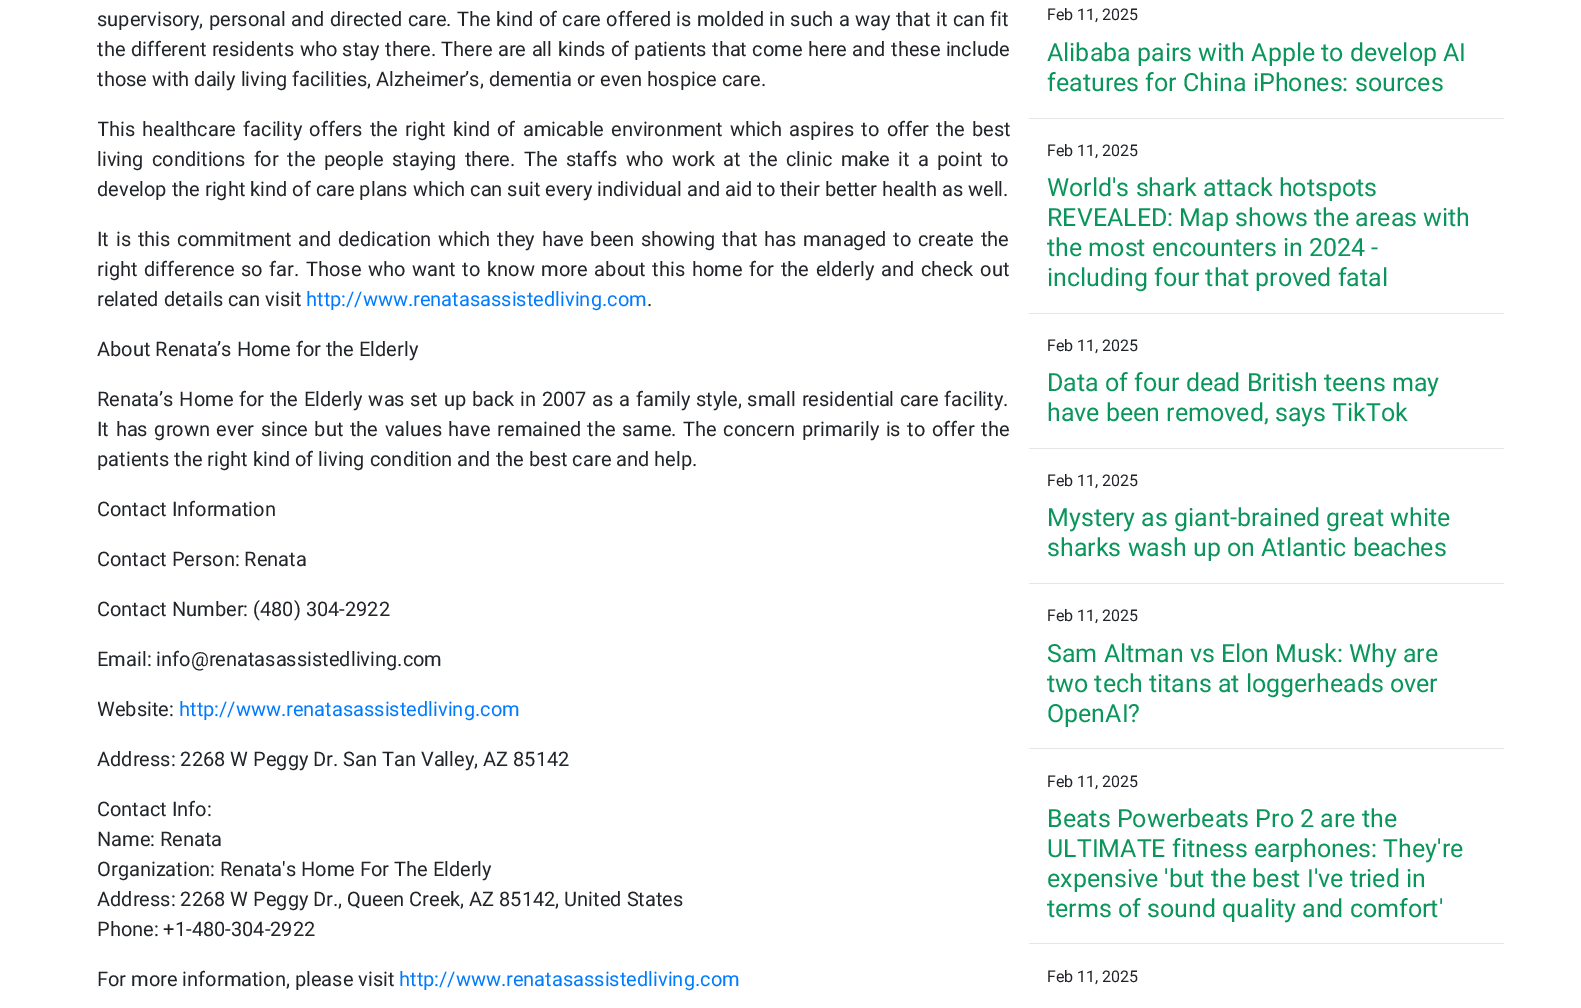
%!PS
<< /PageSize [1581 1008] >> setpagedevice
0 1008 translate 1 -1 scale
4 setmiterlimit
1 setgray
0 0 1581 1008 rectfill
/Roboto-Regular [20 0 0 -20 0 0] selectfont
0.129 0.145 0.161 setrgbcolor
97 26 moveto 0.4 0 32 (supervisory, personal and directed care. The kind of care offered is molded in such a way that it can fit) widthshow
97 56 moveto 0.5 0 32 (the different residents who stay there. There are all kinds of patients that come here and these include) widthshow
97 86 moveto (those with daily living facilities, Alzheimer’s, dementia or even hospice care.) show
gsave
98 0 912 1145 rectclip
97 136 moveto 2.25 0 32 (This healthcare facility offers the right kind of amicable environment which aspires to offer the best) widthshow
grestore
97 166 moveto 3.4 0 32 (living conditions for the people staying there. The staffs who work at the clinic make it a point to) widthshow
gsave
98 0 912 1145 rectclip
97 196 moveto (develop the right kind of care plans which can suit every individual and aid to their better health as well.) show
grestore
97 246 moveto 1.8 0 32 (It is this commitment and dedication which they have been showing that has managed to create the) widthshow
97 276 moveto 1.75 0 32 (right difference so far. Those who want to know more about this home for the elderly and check out) widthshow
97 306 moveto (related details can visit) show
0 0.482 1 setrgbcolor
306 306 moveto (http://www.renatasassistedliving.com) show
0.129 0.145 0.161 setrgbcolor
647 306 moveto (.) show
97 356 moveto (About Renata’s Home for the Elderly) show
97 406 moveto 0.75 0 32 (Renata’s Home for the Elderly was set up back in 2007 as a family style, small residential care facility.) widthshow
97 436 moveto 1.6 0 32 (It has grown ever since but the values have remained the same. The concern primarily is to offer the) widthshow
97 466 moveto (patients the right kind of living condition and the best care and help.) show
97 516 moveto (Contact Information) show
97 566 moveto (Contact Person: Renata) show
97 616 moveto (Contact Number: \(480\) 304-2922) show
97 666 moveto (Email: info@renatasassistedliving.com) show
gsave
98 0 912 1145 rectclip
97 716 moveto (Website:) show
grestore
0 0.482 1 setrgbcolor
179 716 moveto (http://www.renatasassistedliving.com) show
0.129 0.145 0.161 setrgbcolor
97 766 moveto (Address: 2268 W Peggy Dr. San Tan Valley, AZ 85142) show
97 816 moveto (Contact Info:) show
97 846 moveto (Name: Renata) show
97 876 moveto (Organization: Renata's Home For The Elderly) show
97 906 moveto (Address: 2268 W Peggy Dr., Queen Creek, AZ 85142, United States) show
97 936 moveto (Phone: +1-480-304-2922) show
97 986 moveto (For more information, please visit) show
0 0.482 1 setrgbcolor
399 986 moveto (http://www.renatasassistedliving.com) show
/Roboto-Regular [16 0 0 -16 0 0] selectfont
0.129 0.145 0.161 setrgbcolor
1047 20 moveto (Feb 11, 2025) show
/Roboto-Regular [25 0 0 -25 0 0] selectfont
0.039 0.584 0.357 setrgbcolor
1047 61 moveto (Alibaba pairs with Apple to develop AI) show
1047 91 moveto (features for China iPhones: sources) show
0.902 setgray
1029 118 475 1 rectfill
/Roboto-Regular [16 0 0 -16 0 0] selectfont
0.129 0.145 0.161 setrgbcolor
1047 156 moveto (Feb 11, 2025) show
/Roboto-Regular [25 0 0 -25 0 0] selectfont
0.039 0.584 0.357 setrgbcolor
1047 196 moveto (World's shark attack hotspots) show
1047 226 moveto (REVEALED: Map shows the areas with) show
1047 256 moveto (the most encounters in 2024 -) show
1047 286 moveto (including four that proved fatal) show
0.902 setgray
1029 313 475 1 rectfill
/Roboto-Regular [16 0 0 -16 0 0] selectfont
0.129 0.145 0.161 setrgbcolor
1047 351 moveto (Feb 11, 2025) show
/Roboto-Regular [25 0 0 -25 0 0] selectfont
0.039 0.584 0.357 setrgbcolor
1047 391 moveto (Data of four dead British teens may) show
1047 421 moveto (have been removed, says TikTok) show
0.902 setgray
1029 448 475 1 rectfill
/Roboto-Regular [16 0 0 -16 0 0] selectfont
0.129 0.145 0.161 setrgbcolor
1047 486 moveto (Feb 11, 2025) show
/Roboto-Regular [25 0 0 -25 0 0] selectfont
0.039 0.584 0.357 setrgbcolor
1047 526 moveto (Mystery as giant-brained great white) show
1047 556 moveto (sharks wash up on Atlantic beaches) show
0.902 setgray
1029 583 475 1 rectfill
/Roboto-Regular [16 0 0 -16 0 0] selectfont
0.129 0.145 0.161 setrgbcolor
1047 621 moveto (Feb 11, 2025) show
/Roboto-Regular [25 0 0 -25 0 0] selectfont
0.039 0.584 0.357 setrgbcolor
1047 662 moveto (Sam Altman vs Elon Musk: Why are) show
1047 692 moveto (two tech titans at loggerheads over) show
1047 722 moveto (OpenAI?) show
0.902 setgray
1029 748 475 1 rectfill
/Roboto-Regular [16 0 0 -16 0 0] selectfont
0.129 0.145 0.161 setrgbcolor
1047 787 moveto (Feb 11, 2025) show
/Roboto-Regular [25 0 0 -25 0 0] selectfont
0.039 0.584 0.357 setrgbcolor
1047 827 moveto (Beats Powerbeats Pro 2 are the) show
1047 857 moveto (ULTIMATE fitness earphones: They're) show
1047 887 moveto (expensive 'but the best I've tried in) show
1047 917 moveto (terms of sound quality and comfort') show
0.902 setgray
1029 943 475 1 rectfill
/Roboto-Regular [16 0 0 -16 0 0] selectfont
0.129 0.145 0.161 setrgbcolor
1047 982 moveto (Feb 11, 2025) show
showpage
